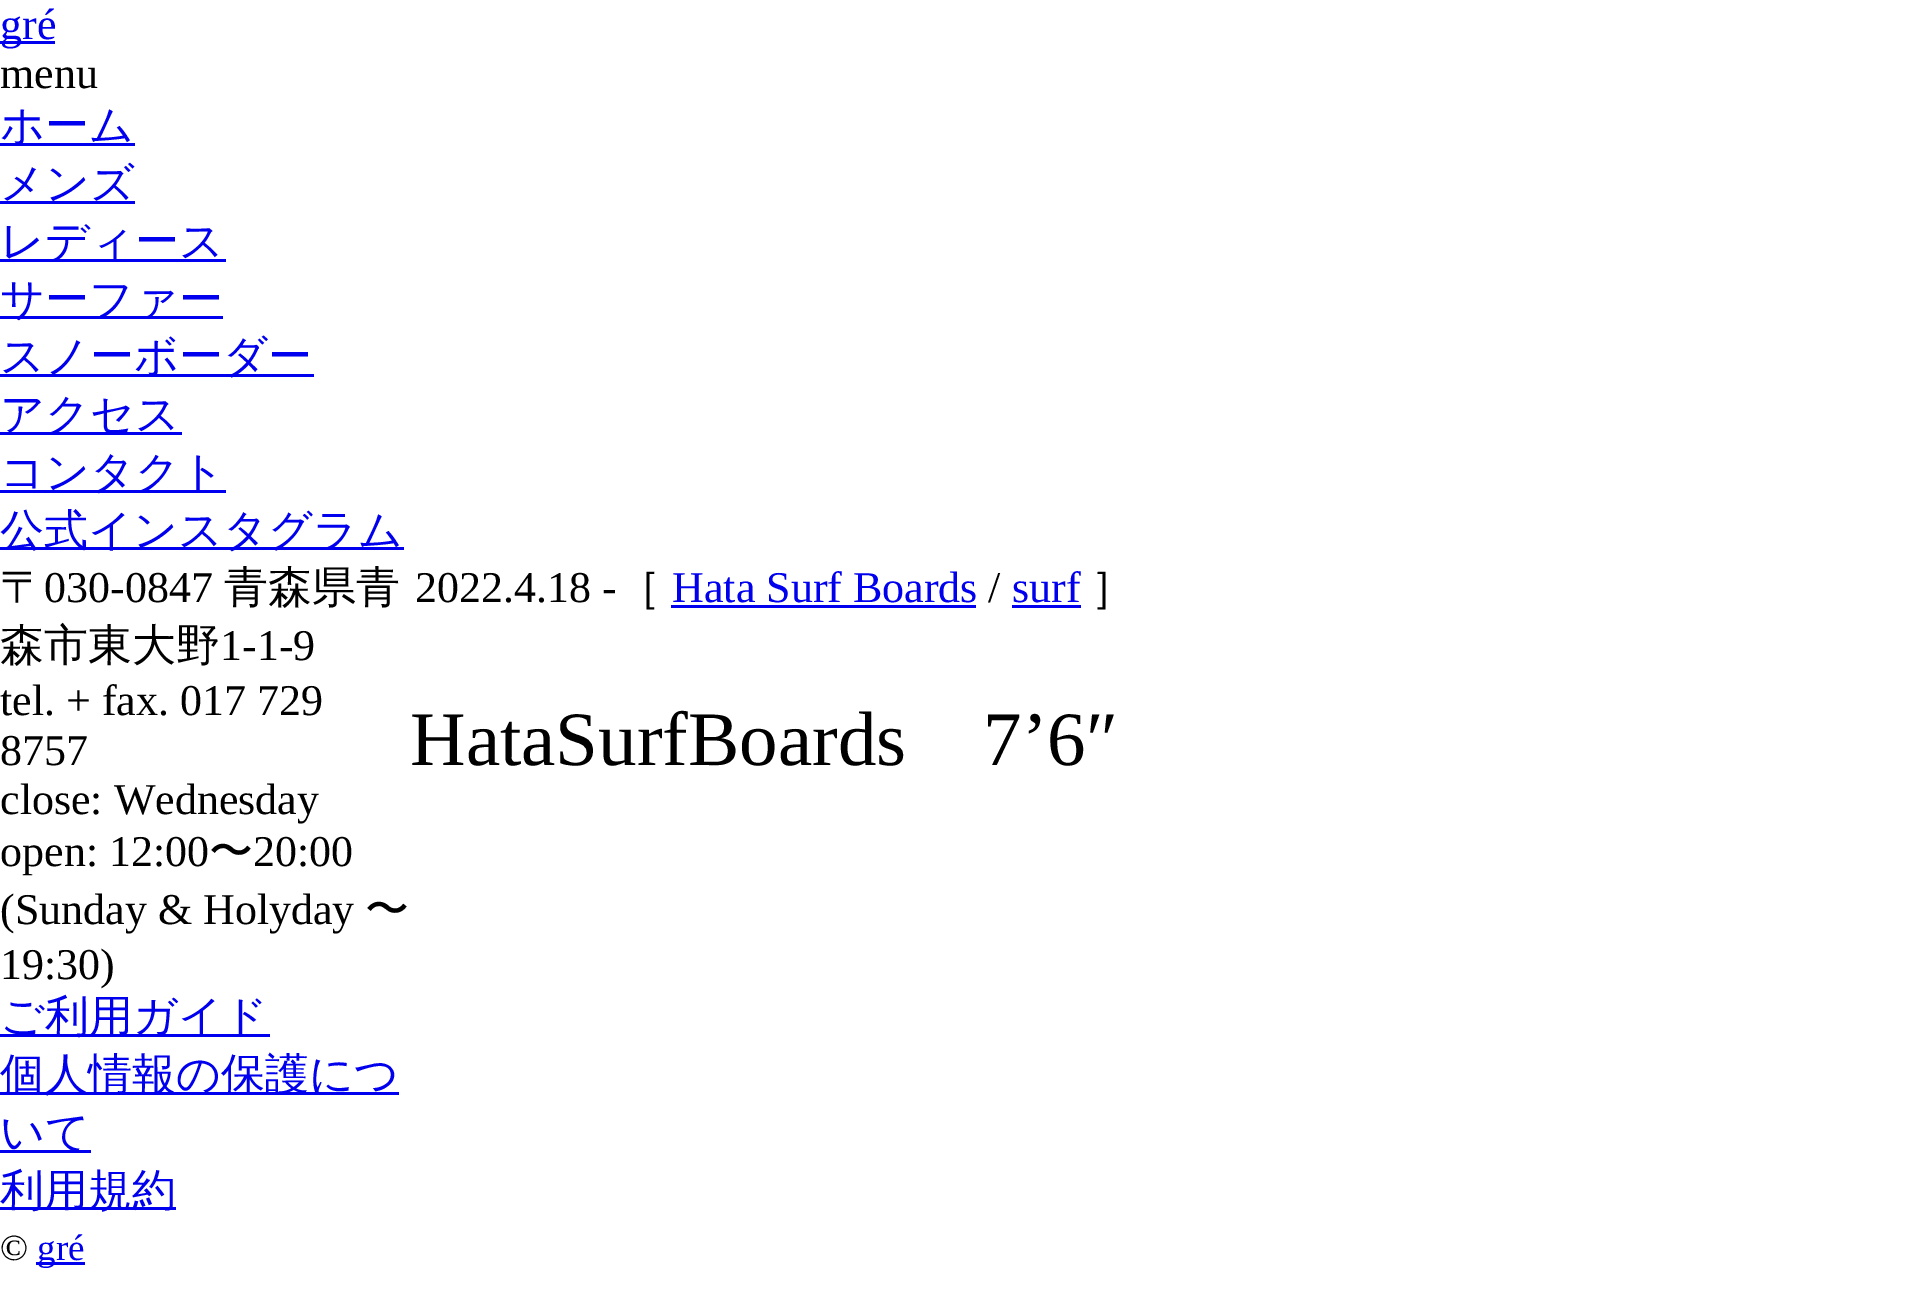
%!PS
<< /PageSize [1921 1296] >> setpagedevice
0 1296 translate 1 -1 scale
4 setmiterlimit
1 setgray
0 0 1921 1296 rectfill
0 0 0.933 setrgbcolor
0 41 55 3 rectfill
/LiberationSerif-Regular [44 0 0 -44 0 0] selectfont
0 39 moveto (gré) show
0 setgray
0 88 moveto (menu) show
0 0 0.933 setrgbcolor
0 143 135 3 rectfill
/WenQuanYiZenHei-Medium [44 0 0 -44 0 0] selectfont
0 140 moveto (ホーム) show
0 201 135 3 rectfill
0 198 moveto (メンズ) show
0 259 226 3 rectfill
0 256 moveto (レディース) show
0 316 223 3 rectfill
0 314 moveto (サーファー) show
0 374 314 3 rectfill
0 371 moveto (スノーボーダー) show
0 432 182 3 rectfill
0 429 moveto (アクセス) show
0 490 226 3 rectfill
0 487 moveto (コンタクト) show
0 547 404 3 rectfill
0 545 moveto (公式インスタグラム) show
0 setgray
0 602 moveto (〒) show
/LiberationSerif-Regular [44 0 0 -44 0 0] selectfont
44 602 moveto (030-0847) show
/WenQuanYiZenHei-Medium [44 0 0 -44 0 0] selectfont
224 602 moveto (青森県青) show
0 660 moveto (森市東大野) show
/LiberationSerif-Regular [44 0 0 -44 0 0] selectfont
220 660 moveto (1-1-9) show
0 715 moveto (tel. + fax. 017 729) show
0 765 moveto (8757) show
0 814 moveto (close: Wednesday) show
0 866 moveto (open: 12:00) show
/WenQuanYiZenHei-Medium [44 0 0 -44 0 0] selectfont
209 866 moveto (〜) show
/LiberationSerif-Regular [44 0 0 -44 0 0] selectfont
253 866 moveto (20:00) show
0 924 moveto (\(Sunday & Holyday) show
/WenQuanYiZenHei-Medium [44 0 0 -44 0 0] selectfont
365 924 moveto (〜) show
/LiberationSerif-Regular [44 0 0 -44 0 0] selectfont
0 979 moveto (19:30\)) show
0 0 0.933 setrgbcolor
0 1034 270 3 rectfill
/WenQuanYiZenHei-Medium [44 0 0 -44 0 0] selectfont
0 1031 moveto (ご利用ガイド) show
0 1092 399 3 rectfill
0 1089 moveto (個人情報の保護につ) show
0 1150 91 3 rectfill
0 1147 moveto (いて) show
0 1207 176 3 rectfill
0 1205 moveto (利用規約) show
/LiberationSerif-Regular [37 0 0 -37 0 0] selectfont
0 setgray
0 1260 moveto (©) show
0 0 0.933 setrgbcolor
36 1262 49 3 rectfill
37 1260 moveto (gré) show
/LiberationSerif-Regular [44 0 0 -44 0 0] selectfont
0 setgray
415 602 moveto (2022.4.18 -) show
/WenQuanYiZenHei-Medium [44 0 0 -44 0 0] selectfont
617 602 moveto (［) show
/LiberationSerif-Regular [44 0 0 -44 0 0] selectfont
0 0 0.933 setrgbcolor
672 602 moveto (Hata Surf Boards) show
671 605 305 3 rectfill
0 setgray
988 602 moveto (/) show
0 0 0.933 setrgbcolor
1012 602 moveto (surf) show
1012 605 69 3 rectfill
/WenQuanYiZenHei-Medium [44 0 0 -44 0 0] selectfont
0 setgray
1091 602 moveto (］) show
/LiberationSerif-Regular [77 0 0 -77 0 0] selectfont
410 765 moveto (HataSurfBoards) show
983 765 moveto (7’6″) show
showpage
